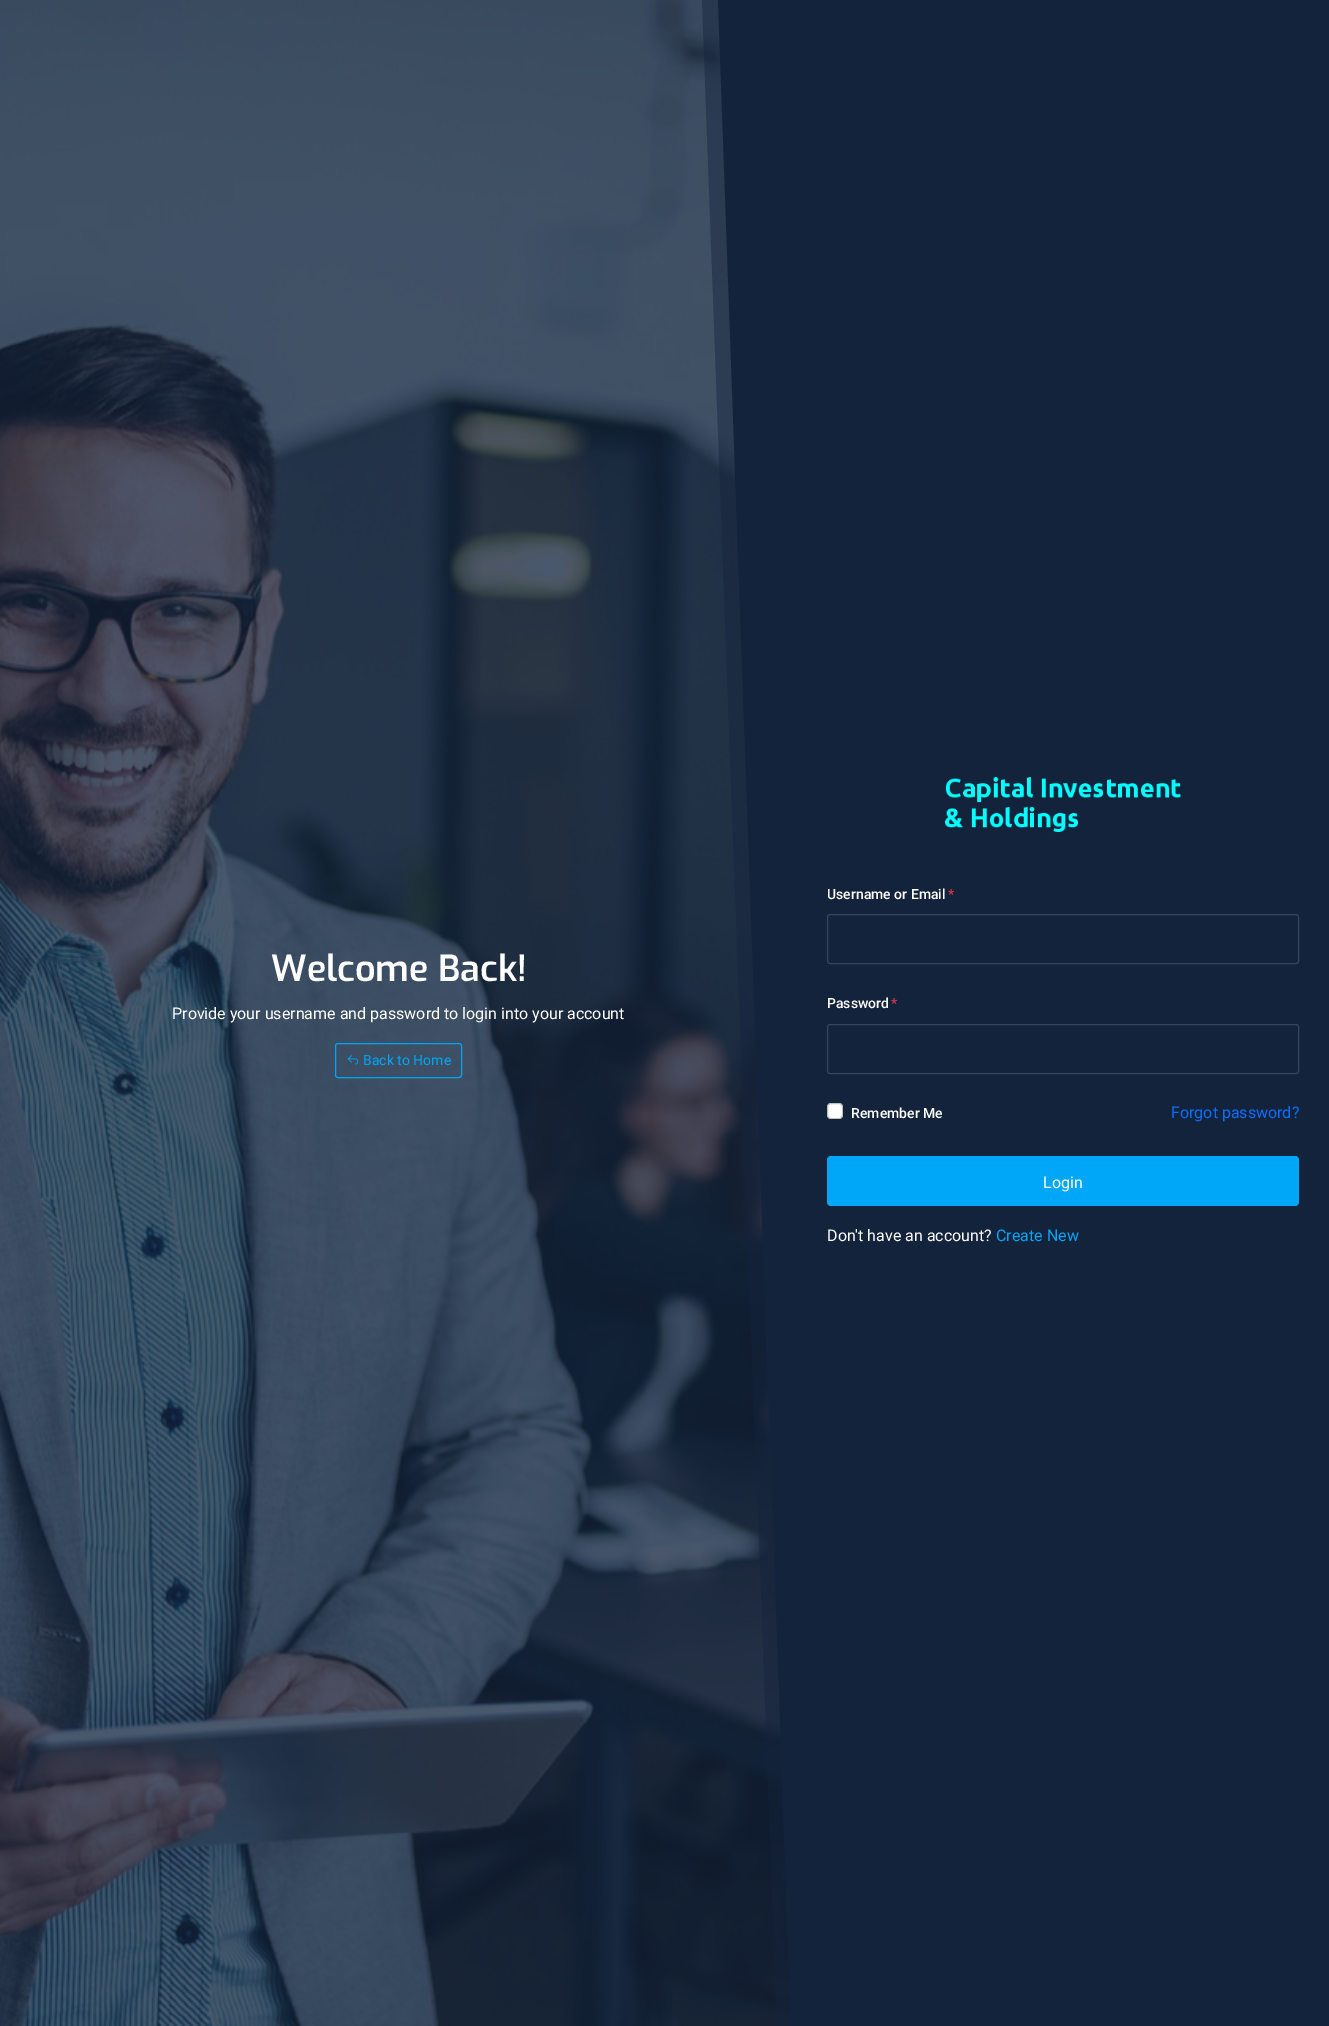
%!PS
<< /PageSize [1329 2026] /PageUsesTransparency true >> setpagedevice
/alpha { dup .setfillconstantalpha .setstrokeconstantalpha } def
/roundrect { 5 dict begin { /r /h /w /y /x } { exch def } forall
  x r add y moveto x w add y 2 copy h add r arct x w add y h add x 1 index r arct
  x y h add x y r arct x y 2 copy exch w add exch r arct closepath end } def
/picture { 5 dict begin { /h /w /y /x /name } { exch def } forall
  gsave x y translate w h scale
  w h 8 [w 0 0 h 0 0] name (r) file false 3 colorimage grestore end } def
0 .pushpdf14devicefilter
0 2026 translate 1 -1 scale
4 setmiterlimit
1 setgray
0 0 1329 2026 rectfill
(img1.rgb) 0 0 791 2026 picture
/Exo-SemiBold [36 0 0 -36 0 0] selectfont
271 981 moveto (Welcome Back!) show
/Roboto-Regular [16 0 0 -16 0 0] selectfont
172 1019 moveto (Provide your username and password to login into your account) show
0 0.651 0.969 setrgbcolor
335.5 1043.5 126 34 2.5 roundrect stroke
(img2.rgb) 347 1055 12 10 picture
/Roboto-Regular [14 0 0 -14 0 0] selectfont
363 1065 moveto (Back to Home) show
0.45 alpha
0.078 0.137 0.235 setrgbcolor
newpath 702 0 moveto 777 2026 lineto 1329 2026 lineto 1329 0 lineto closepath fill
1 alpha
newpath 718 0 moveto 791 2026 lineto 1329 2026 lineto 1329 0 lineto closepath fill
(img3.rgb) 945 777 236 55 picture
/Roboto-Medium [14 0 0 -14 0 0] selectfont
1 setgray
827 899 moveto (Username or Email) show
0.863 0.208 0.271 setrgbcolor
948 899 moveto (*) show
0.216 0.267 0.349 setrgbcolor
827.5 914.5 471 49 2.5 roundrect stroke
1 setgray
827 1008 moveto (Password) show
0.863 0.208 0.271 setrgbcolor
891 1008 moveto (*) show
0.216 0.267 0.349 setrgbcolor
827.5 1024.5 471 49 2.5 roundrect stroke
1 setgray
827 1103 16 16 4 roundrect fill
0.25 alpha
0 setgray
827.5 1103.5 15 15 3.5 roundrect stroke
1 alpha
1 setgray
851 1118 moveto (Remember Me) show
/Roboto-Regular [16 0 0 -16 0 0] selectfont
0.051 0.431 0.992 setrgbcolor
1171 1118 moveto (Forgot password?) show
0 0.651 0.969 setrgbcolor
827 1156 472 50 4 roundrect fill
1 setgray
1043 1188 moveto (Login) show
827 1241 moveto (Don't have an account?) show
0 0.651 0.969 setrgbcolor
996 1241 moveto (Create New) show
.poppdf14devicefilter showpage
